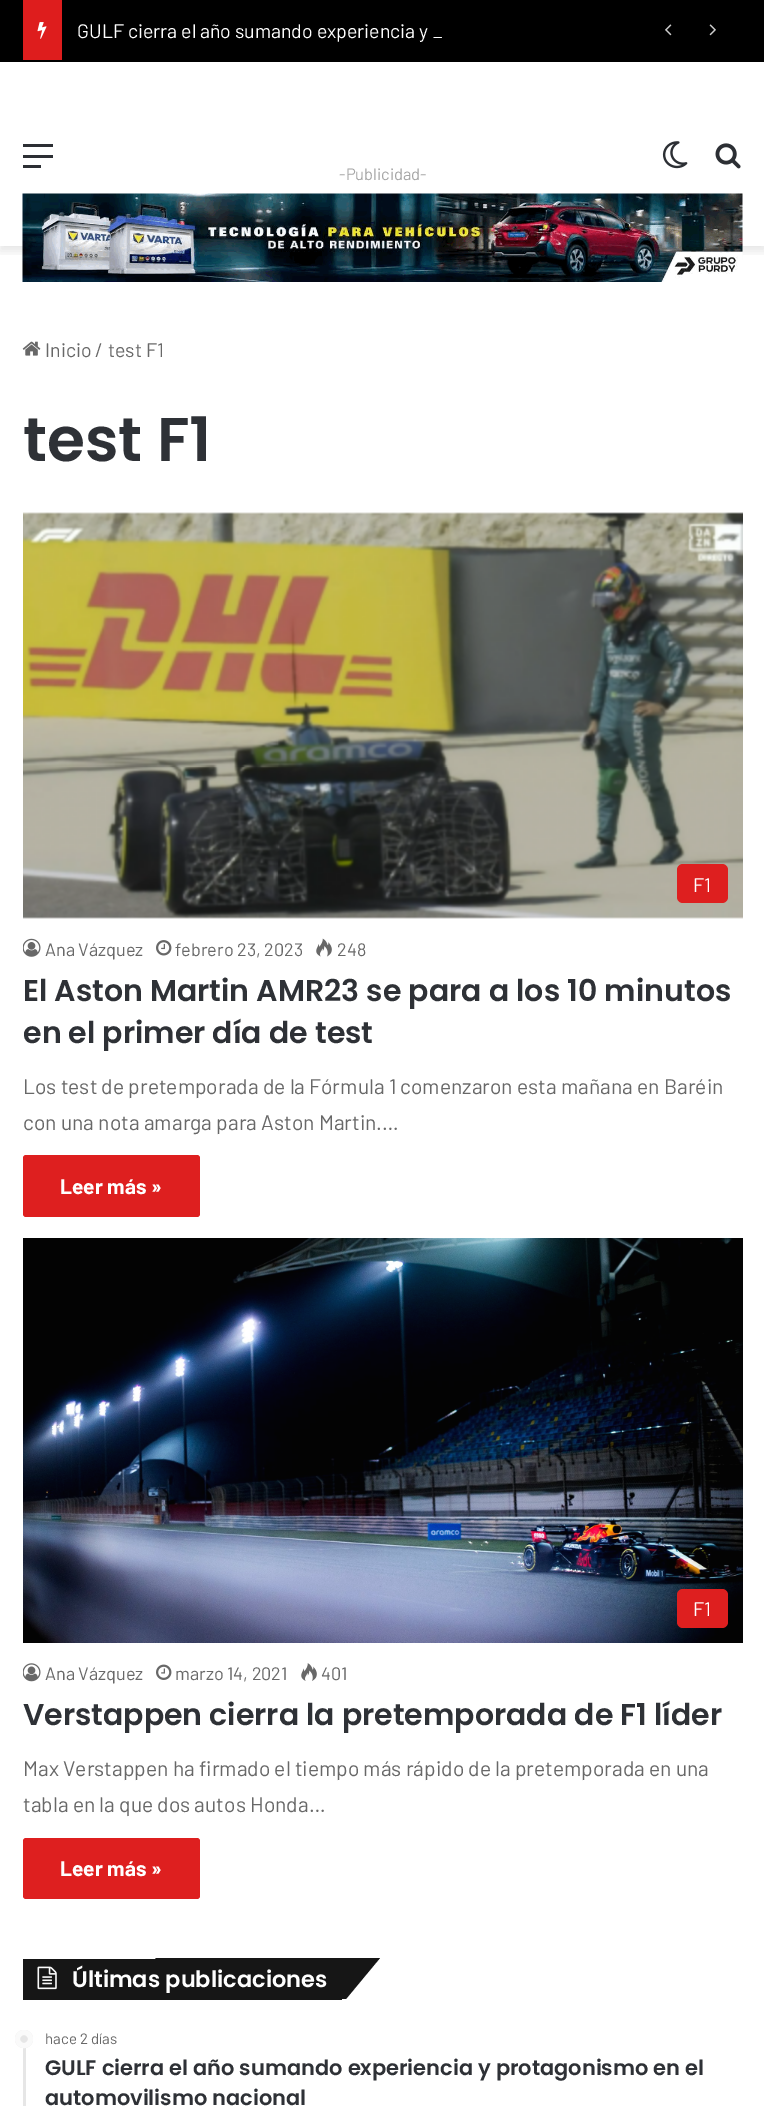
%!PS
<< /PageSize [764 2106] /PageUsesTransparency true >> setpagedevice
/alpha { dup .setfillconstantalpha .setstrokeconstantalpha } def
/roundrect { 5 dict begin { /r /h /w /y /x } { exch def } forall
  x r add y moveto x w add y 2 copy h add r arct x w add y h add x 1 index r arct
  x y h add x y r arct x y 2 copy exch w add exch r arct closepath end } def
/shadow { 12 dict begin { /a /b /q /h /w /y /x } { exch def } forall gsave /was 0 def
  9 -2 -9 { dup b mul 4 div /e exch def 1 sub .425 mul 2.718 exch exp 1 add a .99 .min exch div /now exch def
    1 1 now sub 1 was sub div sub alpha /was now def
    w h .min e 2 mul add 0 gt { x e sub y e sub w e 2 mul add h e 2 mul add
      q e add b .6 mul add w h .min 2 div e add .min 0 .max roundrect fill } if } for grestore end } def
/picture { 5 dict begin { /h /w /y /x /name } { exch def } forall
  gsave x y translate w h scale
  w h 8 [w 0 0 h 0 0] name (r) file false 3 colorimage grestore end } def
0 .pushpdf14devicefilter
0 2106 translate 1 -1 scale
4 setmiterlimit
1 setgray
0 0 764 2106 rectfill
gsave
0 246 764 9 rectclip
0 setgray
0 66 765 185 0 5 0.1 shadow
grestore
0 setgray
0 0 764 62 rectfill
0.871 0.114 0.114 setrgbcolor
23 0 39 60 rectfill
(img1.rgb) 37 22 10 17 picture
/Barlow-Regular [19.5 0 0 -19.5 0 0] selectfont
1 setgray
77 38 moveto (GULF cierra el año sumando experiencia y) show
433 38 moveto (_) show
(img2.rgb) 665 24 7 12 picture
(img3.rgb) 709 24 7 12 picture
0.173 0.184 0.204 setrgbcolor
23 155 30 3 rectfill
23 144 30 3 rectfill
23 165 18 3 rectfill
(img4.rgb) 662 141 26 28 picture
(img5.rgb) 715 143 26 26 picture
/Barlow-Regular [16.5 0 0 -16.5 0 0] selectfont
0.647 setgray
339 180 moveto (-Publicidad-) show
(img6.rgb) 22 193 721 89 picture
(img7.rgb) 22 341 19 15 picture
/Barlow-Regular [19.5 0 0 -19.5 0 0] selectfont
0.408 setgray
45 357 moveto (Inicio) show
95 357 moveto (/) show
108 357 moveto (test F1) show
/Poppins-SemiBold [61.5 0 0 -61.5 0 0] selectfont
0.18 0.192 0.212 setrgbcolor
23 461 moveto (test F1) show
(img8.rgb) 23 512 720 407 picture
0.871 0.122 0.122 setrgbcolor
677 864 51 39 6 roundrect fill
/Barlow-Regular [19.5 0 0 -19.5 0 0] selectfont
1 setgray
693 892 moveto (F1) show
(img9.rgb) 23 938 18 19 picture
/Barlow-Regular [18 0 0 -18 0 0] selectfont
0.408 setgray
45 956 moveto (Ana Vázquez) show
(img10.rgb) 156 940 16 16 picture
175 956 moveto (febrero 23, 2023) show
(img11.rgb) 316 938 16 19 picture
337 956 moveto (248) show
/Poppins-SemiBold [30 0 0 -30 0 0] selectfont
0.18 0.192 0.212 setrgbcolor
23 1001 moveto (El Aston Martin AMR23 se para a los 10 minutos) show
23 1043 moveto (en el primer día de test) show
/Barlow-Regular [21 0 0 -21 0 0] selectfont
0.408 setgray
23 1094 moveto (Los test de pretemporada de la Fórmula 1 comenzaron esta mañana en Baréin) show
23 1130 moveto (con una nota amarga para Aston Martin.…) show
0.871 0.122 0.122 setrgbcolor
23 1155 177 62 3 roundrect fill
/Barlow-Bold [21 0 0 -21 0 0] selectfont
1 setgray
60 1194 moveto (Leer más ») show
(img12.rgb) 23 1238 720 405 picture
0.871 0.122 0.122 setrgbcolor
677 1589 51 39 6 roundrect fill
/Barlow-Regular [19.5 0 0 -19.5 0 0] selectfont
1 setgray
693 1616 moveto (F1) show
(img13.rgb) 23 1663 18 19 picture
/Barlow-Regular [18 0 0 -18 0 0] selectfont
0.408 setgray
45 1680 moveto (Ana Vázquez) show
(img14.rgb) 156 1664 16 16 picture
175 1680 moveto (marzo 14, 2021) show
(img15.rgb) 301 1663 16 18 picture
321 1680 moveto (401) show
/Poppins-SemiBold [30 0 0 -30 0 0] selectfont
0.18 0.192 0.212 setrgbcolor
23 1725 moveto (Verstappen cierra la pretemporada de F1 líder) show
/Barlow-Regular [21 0 0 -21 0 0] selectfont
0.408 setgray
23 1776 moveto (Max Verstappen ha firmado el tiempo más rápido de la pretemporada en una) show
23 1812 moveto (tabla en la que dos autos Honda…) show
0.871 0.122 0.122 setrgbcolor
23 1838 177 61 3 roundrect fill
/Barlow-Bold [21 0 0 -21 0 0] selectfont
1 setgray
60 1876 moveto (Leer más ») show
0.086 setgray
23 1959 319 41 rectfill
newpath 156 1958 moveto 380 1958 lineto 346 1999 lineto 122 1999 lineto closepath fill
(img16.rgb) 37 1966 20 24 picture
/Poppins-SemiBold [22.5 0 0 -22.5 0 0] selectfont
1 setgray
72 1987 moveto (Últimas publicaciones) show
0.902 setgray
23 2030 3 76 rectfill
newpath 24 2039 9 0 360 arc closepath fill
0.8 alpha
1 setgray
5 setlinewidth
newpath 24 2039 6.5 0 360 arc closepath stroke
/Barlow-Regular [15 0 0 -15 0 0] selectfont
1 alpha
0.408 setgray
45 2044 moveto (hace 2 días) show
/Poppins-SemiBold [21 0 0 -21 0 0] selectfont
0.18 0.192 0.212 setrgbcolor
45 2075 moveto (GULF cierra el año sumando experiencia y protagonismo en el) show
45 2105 moveto (automovilismo nacional) show
.poppdf14devicefilter showpage
